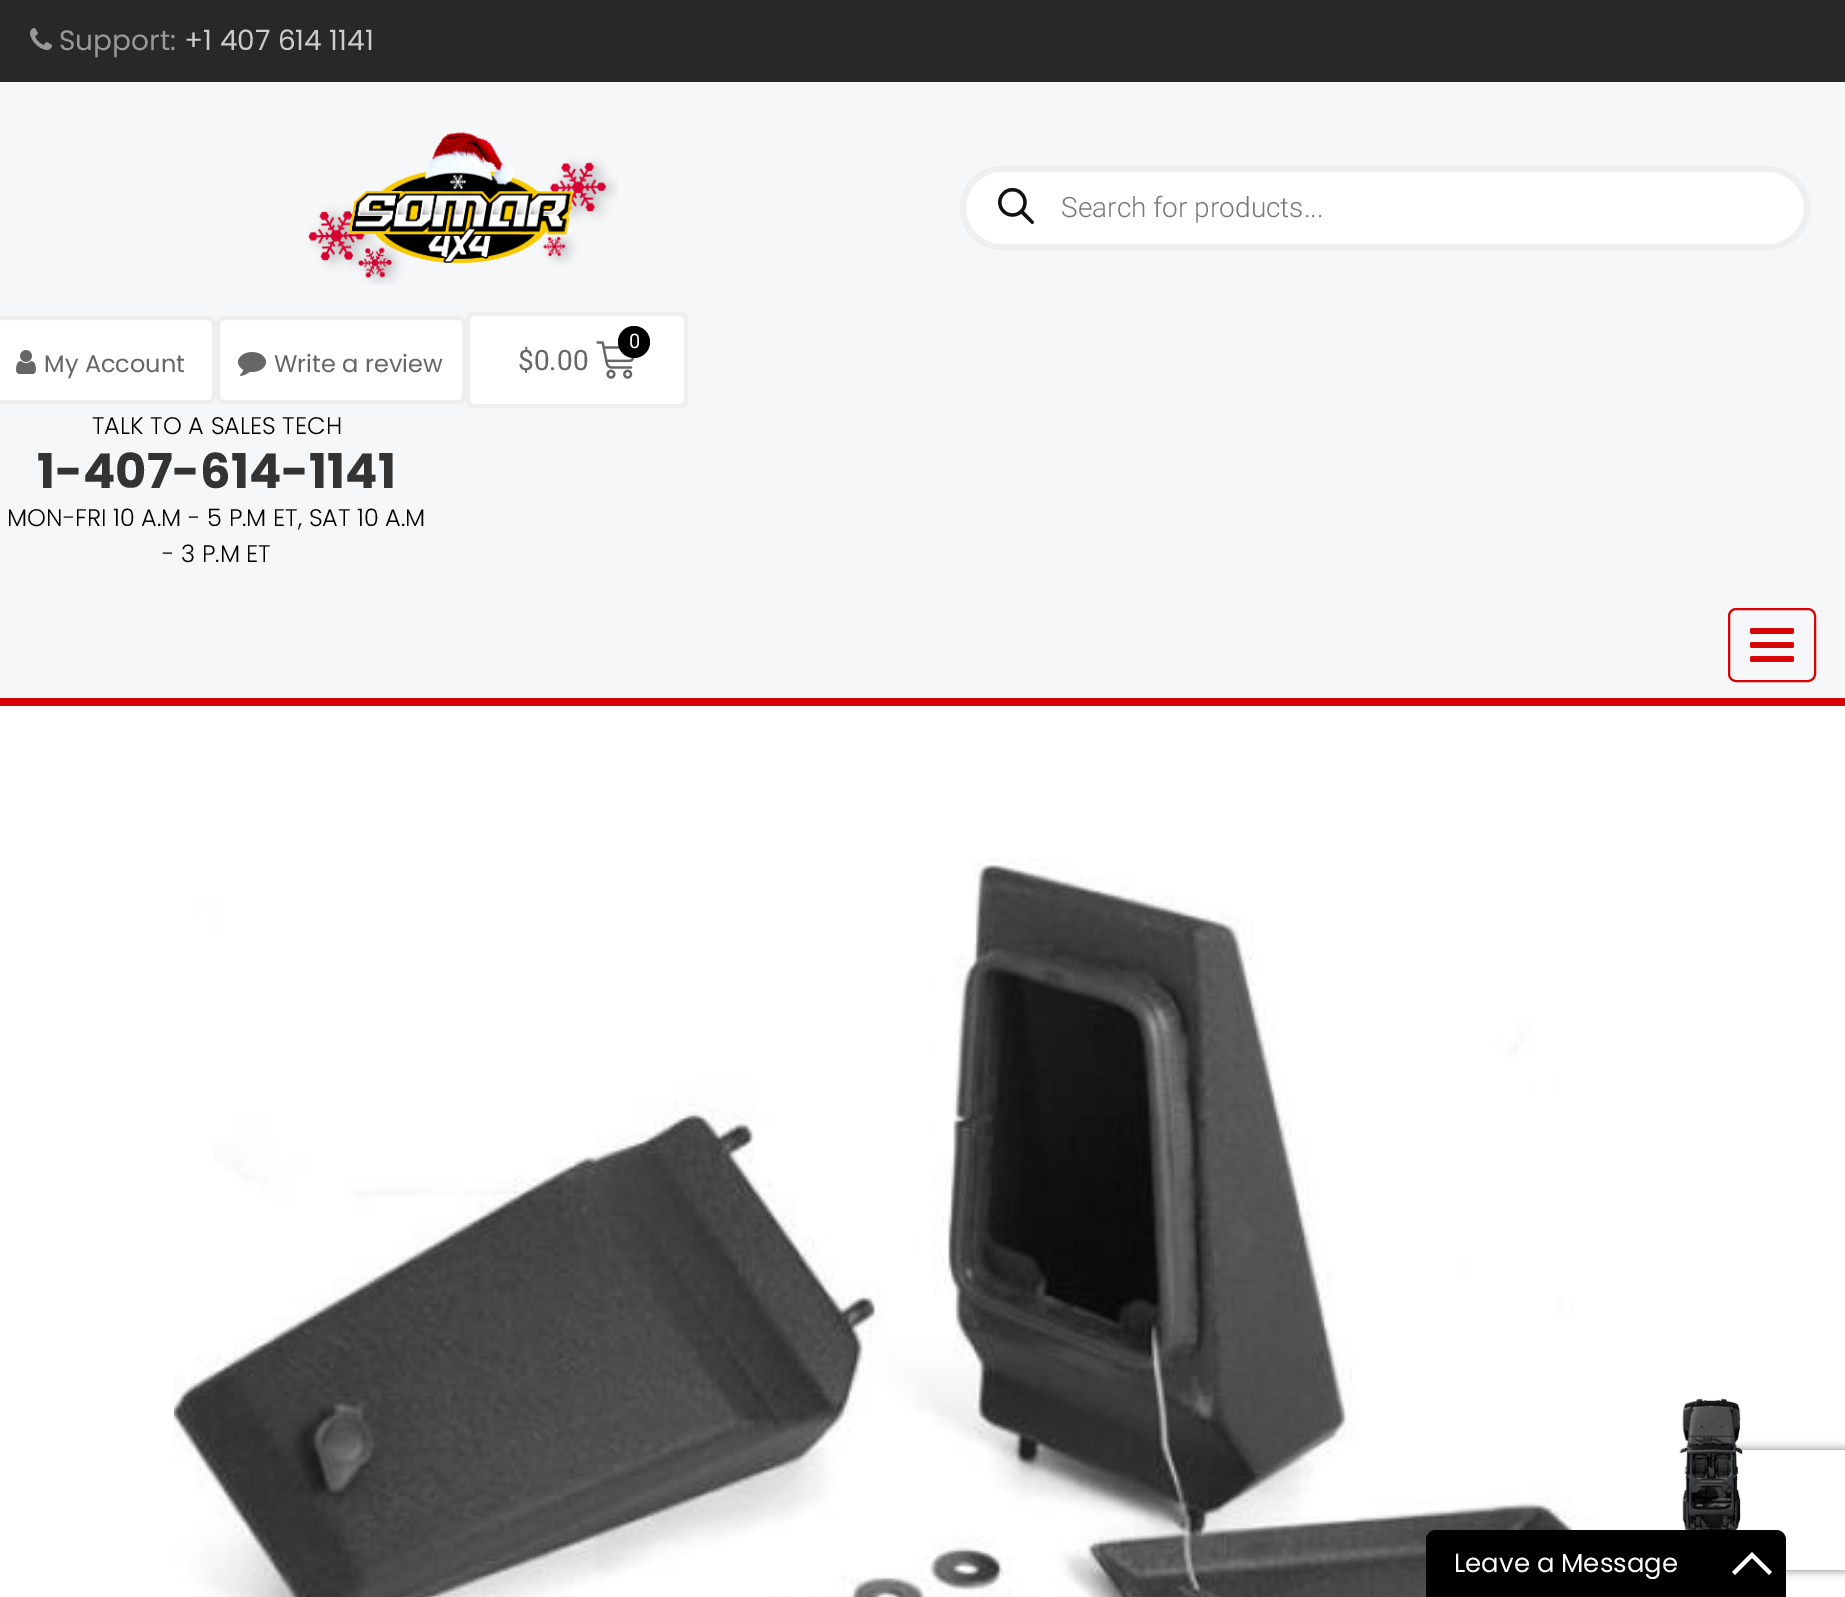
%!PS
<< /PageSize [1845 1597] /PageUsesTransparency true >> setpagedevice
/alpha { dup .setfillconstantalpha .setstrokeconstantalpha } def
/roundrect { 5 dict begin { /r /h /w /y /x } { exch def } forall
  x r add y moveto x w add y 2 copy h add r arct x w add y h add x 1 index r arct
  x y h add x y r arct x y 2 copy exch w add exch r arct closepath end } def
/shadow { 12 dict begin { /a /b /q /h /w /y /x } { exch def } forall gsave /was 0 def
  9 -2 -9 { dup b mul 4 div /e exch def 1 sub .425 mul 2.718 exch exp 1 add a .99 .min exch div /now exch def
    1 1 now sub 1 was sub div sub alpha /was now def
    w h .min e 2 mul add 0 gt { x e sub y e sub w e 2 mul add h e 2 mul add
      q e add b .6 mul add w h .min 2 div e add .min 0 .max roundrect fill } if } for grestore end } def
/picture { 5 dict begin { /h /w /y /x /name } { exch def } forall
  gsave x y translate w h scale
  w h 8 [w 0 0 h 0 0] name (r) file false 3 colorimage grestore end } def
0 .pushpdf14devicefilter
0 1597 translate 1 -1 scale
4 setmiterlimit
1 setgray
0 0 1845 1597 rectfill
0.157 setgray
0 0 1845 82 rectfill
(img1.rgb) 30 28 22 22 picture
/Poppins-Regular [28 0 0 -28 0 0] selectfont
0.6 setgray
59 50 moveto (Support:) show
0.8 setgray
184 50 moveto (+1 407 614 1141) show
0.965 0.969 0.976 setrgbcolor
0 82 1845 616 rectfill
(img2.rgb) 308 132 310 153 picture
0.933 setgray
2 setlinewidth
961 167 848 82 41 roundrect stroke
1 setgray
964 170 842 76 38 roundrect gsave fill grestore
0.937 setgray
4 setlinewidth
stroke
(img3.rgb) 998 188 36 36 picture
/Roboto-Light [28 0 0 -28 0 0] selectfont
0.467 setgray
1061 217 moveto (Search for products...) show
1 setgray
-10 318 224 84 6 roundrect gsave fill grestore
0.933 setgray
stroke
(img4.rgb) 16 350 20 24 picture
/Poppins-Regular [24 0 0 -24 0 0] selectfont
0.4 setgray
44 372 moveto (My Account) show
1 setgray
218 318 246 84 6 roundrect gsave fill grestore
0.933 setgray
stroke
(img5.rgb) 238 352 28 24 picture
0.4 setgray
274 372 moveto (Write a review) show
1 setgray
468 314 218 92 6 roundrect gsave fill grestore
0.933 setgray
stroke
(img6.rgb) 596 341 39 38 picture
0 setgray
newpath 634 342 16 0 360 arc closepath fill
/Roboto-Regular [20 0 0 -20 0 0] selectfont
1 setgray
629 348 moveto (0) show
/Roboto-Regular [28 0 0 -28 0 0] selectfont
0.4 setgray
518 370 moveto ($0.00) show
/Poppins-Light [24 0 0 -24 0 0] selectfont
0 setgray
92 434 moveto (TALK TO A SALES TECH) show
/Poppins-Bold [48 0 0 -48 0 0] selectfont
0.2 setgray
37 488 moveto (1-407-614-1141) show
/Poppins-Light [24 0 0 -24 0 0] selectfont
0 setgray
7 526 moveto (MON-FRI 10 A.M - 5 P.M ET, SAT 10 A.M) show
162 562 moveto (- 3 P.M ET) show
0.839 0.016 0.027 setrgbcolor
0 698 1845 8 rectfill
2 setlinewidth
1729 609 86 72 7 roundrect stroke
1750 628 44 6 2 roundrect fill
1750 642 44 6 2 roundrect fill
1750 656 44 6 2 roundrect fill
(img7.rgb) 174 858 1480 739 picture
gsave
newpath 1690 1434 moveto 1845 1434 lineto 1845 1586 lineto 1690 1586 lineto closepath 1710 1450 moveto 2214 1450 lineto 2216 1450 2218 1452 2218 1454 curveto 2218 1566 lineto 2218 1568 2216 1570 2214 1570 curveto 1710 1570 lineto 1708 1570 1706 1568 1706 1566 curveto 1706 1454 lineto 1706 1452 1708 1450 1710 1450 curveto closepath eoclip newpath
0.502 setgray
1706 1450 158 120 4 5 1 shadow
grestore
(img8.rgb) 1679 1398 64 132 picture
0 setgray
newpath 1436 1530 moveto 1776 1530 lineto 1781.5 1530 1786 1534.5 1786 1540 curveto 1786 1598 lineto 1426 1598 lineto 1426 1540 lineto 1426 1534.5 1430.5 1530 1436 1530 curveto closepath fill
/Poppins-Regular [26 0 0 -26 0 0] selectfont
1 setgray
1454 1572 moveto (Leave a Message) show
newpath 1752 1552 moveto 1772 1572 lineto 1769 1575 lineto 1752 1558 lineto 1735 1575 lineto 1732 1572 lineto closepath fill
.poppdf14devicefilter showpage
